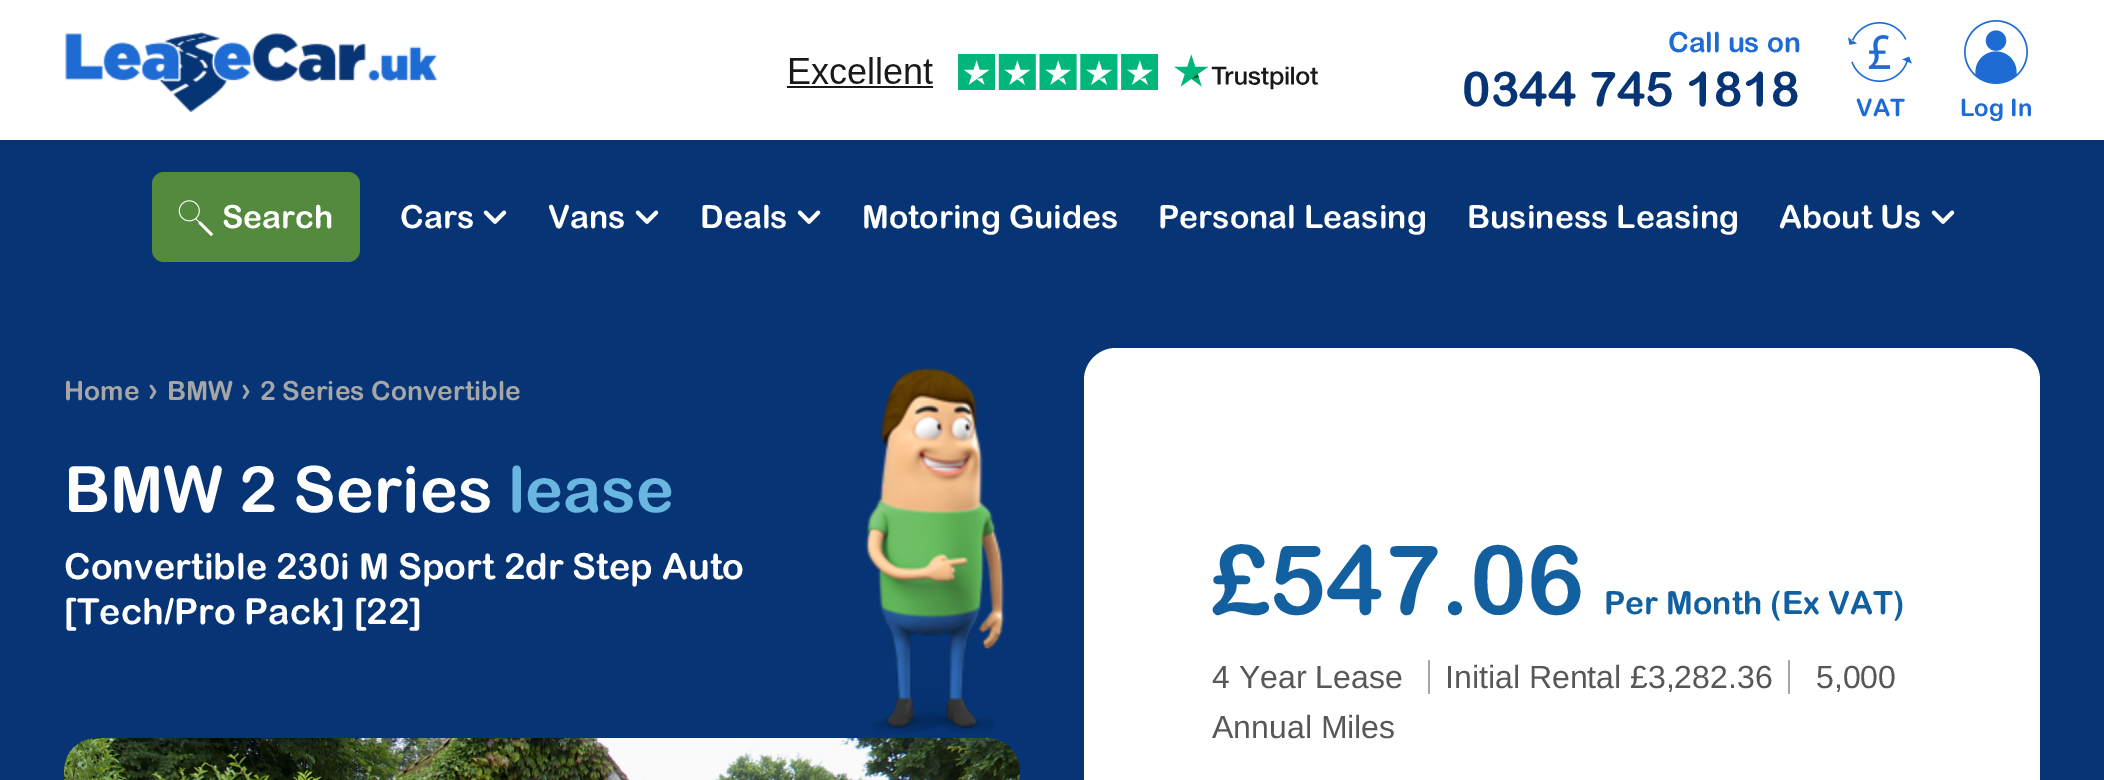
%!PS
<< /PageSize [2104 780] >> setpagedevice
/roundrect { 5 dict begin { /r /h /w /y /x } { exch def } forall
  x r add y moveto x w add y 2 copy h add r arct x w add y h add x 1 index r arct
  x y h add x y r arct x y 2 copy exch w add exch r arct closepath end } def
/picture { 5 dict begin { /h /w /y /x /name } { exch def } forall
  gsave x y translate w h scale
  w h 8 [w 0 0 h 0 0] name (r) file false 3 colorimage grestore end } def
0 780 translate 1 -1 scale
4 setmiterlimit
0.024 0.204 0.455 setrgbcolor
0 0 2104 780 rectfill
1 setgray
0 0 2104 140 rectfill
(img1.rgb) 65 32 373 80 picture
(img2.rgb) 786 54 532 36 picture
/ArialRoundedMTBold-Bold [28 0 0 -28 0 0] selectfont
0.114 0.42 0.827 setrgbcolor
1668 52 moveto (Call us on) show
/ArialRoundedMTBold-Bold [48 0 0 -48 0 0] selectfont
0.024 0.204 0.455 setrgbcolor
1462 106 moveto (0344 745 1818) show
(img3.rgb) 1848 22 64 60 picture
/ArialRoundedMTBold-Bold [24 0 0 -24 0 0] selectfont
0.114 0.42 0.827 setrgbcolor
1856 116 moveto (VAT) show
(img4.rgb) 1964 20 64 64 picture
1960 116 moveto (Log In) show
0.325 0.541 0.239 setrgbcolor
152 172 208 90 12 roundrect fill
(img5.rgb) 178 200 36 37 picture
/ArialRoundedMTBold-Bold [32 0 0 -32 0 0] selectfont
1 setgray
222 228 moveto (Search) show
400 228 moveto (Cars) show
(img6.rgb) 483 210 24 14 picture
548 228 moveto (Vans) show
(img6.rgb) 635 210 24 14 picture
700 228 moveto (Deals) show
(img6.rgb) 797 210 24 14 picture
862 228 moveto (Motoring Guides) show
1158 228 moveto (Personal Leasing) show
1467 228 moveto (Business Leasing) show
1779 228 moveto (About Us) show
(img6.rgb) 1931 210 24 14 picture
(img7.rgb) 865 367 140 367 picture
/ArialRoundedMTBold-Bold [26.5 0 0 -26.5 0 0] selectfont
0.651 setgray
64 400 moveto (Home) show
/ArialRoundedMTBold-Bold [32 0 0 -32 0 0] selectfont
147 400 moveto (›) show
/ArialRoundedMTBold-Bold [26.5 0 0 -26.5 0 0] selectfont
167 400 moveto (BMW) show
/ArialRoundedMTBold-Bold [32 0 0 -32 0 0] selectfont
240 400 moveto (›) show
/ArialRoundedMTBold-Bold [26.5 0 0 -26.5 0 0] selectfont
260 400 moveto (2 Series Convertible) show
/ArialRoundedMTBold-Bold [64 0 0 -64 0 0] selectfont
1 setgray
64 512 moveto (BMW 2 Series) show
0.412 0.718 0.878 setrgbcolor
508 512 moveto (lease) show
/ArialRoundedMTBold-Bold [36 0 0 -36 0 0] selectfont
1 setgray
64 579 moveto (Convertible 230i M Sport 2dr Step Auto) show
64 624 moveto ([Tech/Pro Pack] [22]) show
(img8.rgb) 64 738 956 42 picture
newpath 1116 348 moveto 2008 348 lineto 2025.5 348 2040 362.5 2040 380 curveto 2040 780 lineto 1084 780 lineto 1084 380 lineto 1084 362.5 1098.5 348 1116 348 curveto closepath fill
/ArialRoundedMTBold-Bold [96 0 0 -96 0 0] selectfont
0.075 0.376 0.627 setrgbcolor
1212 614 moveto (£547.06) show
/ArialRoundedMTBold-Bold [32 0 0 -32 0 0] selectfont
1604 614 moveto (Per Month \(Ex VAT\)) show
/LiberationSans-Regular [32 0 0 -32 0 0] selectfont
0.341 setgray
1212 688 moveto (4 Year Lease) show
1445 688 moveto (Initial Rental £3,282.36) show
0.651 setgray
1428 660 2 34 rectfill
1788 660 2 34 rectfill
0.341 setgray
1816 688 moveto (5,000) show
1212 738 moveto (Annual Miles) show
showpage
